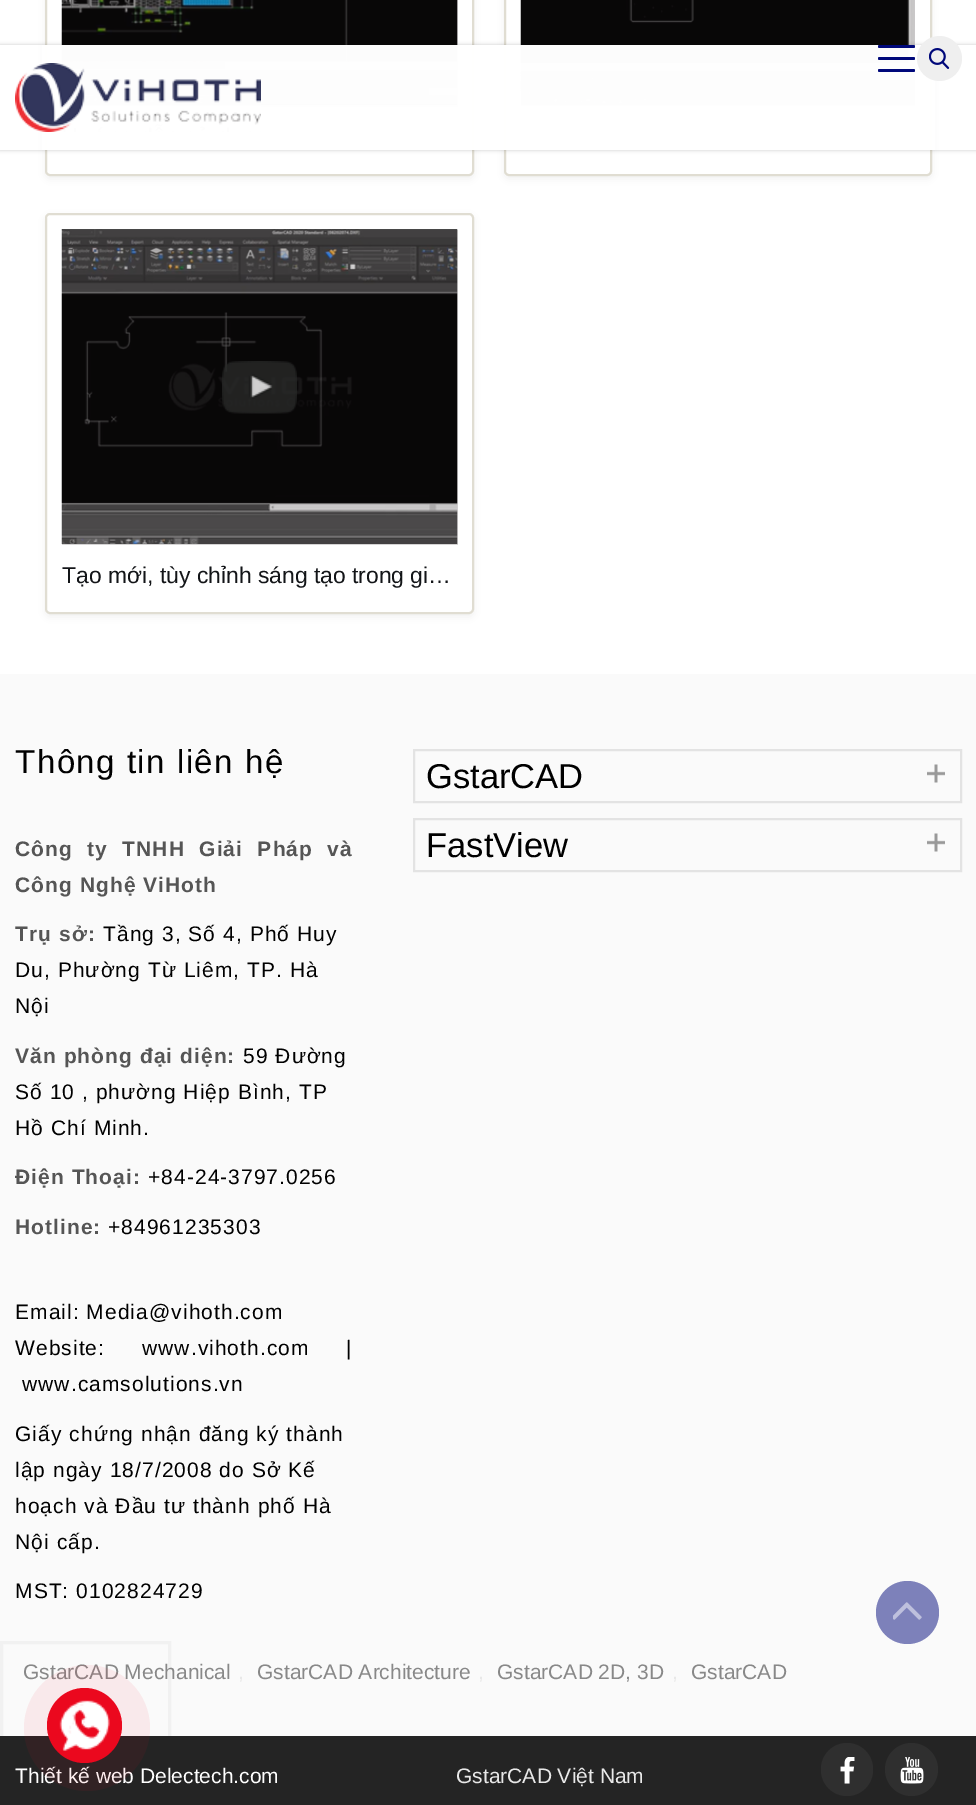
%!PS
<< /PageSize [976 1805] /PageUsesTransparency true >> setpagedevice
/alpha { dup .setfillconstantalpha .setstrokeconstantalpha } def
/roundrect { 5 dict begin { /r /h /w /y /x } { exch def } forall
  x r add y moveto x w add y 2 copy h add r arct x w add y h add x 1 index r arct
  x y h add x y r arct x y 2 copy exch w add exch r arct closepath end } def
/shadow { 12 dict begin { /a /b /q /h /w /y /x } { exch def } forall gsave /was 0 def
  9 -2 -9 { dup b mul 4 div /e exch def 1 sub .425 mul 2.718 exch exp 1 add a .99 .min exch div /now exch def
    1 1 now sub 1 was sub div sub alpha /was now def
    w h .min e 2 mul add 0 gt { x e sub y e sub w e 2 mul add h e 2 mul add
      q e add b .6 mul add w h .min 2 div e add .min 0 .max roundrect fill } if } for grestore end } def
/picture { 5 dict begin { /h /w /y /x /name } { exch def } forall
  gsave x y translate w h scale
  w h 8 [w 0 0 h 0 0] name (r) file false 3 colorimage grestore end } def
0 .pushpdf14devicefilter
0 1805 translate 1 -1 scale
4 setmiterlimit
1 setgray
0 0 976 1805 rectfill
0.075 0.082 0.094 setrgbcolor
45 -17 429 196 5 4 0.05 shadow
1 setgray
45 -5 429 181 5 roundrect fill
0.831 0.827 0.827 setrgbcolor
62 0 396 107 rectfill
0.878 0.867 0.824 setrgbcolor
2 setlinewidth
46 -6 427 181 4 roundrect stroke
(img3.rgb) 61 0 397 106 picture
0.075 0.082 0.094 setrgbcolor
504 -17 428 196 5 4 0.05 shadow
1 setgray
505 -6 426 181 4 roundrect gsave fill grestore
0.878 0.867 0.824 setrgbcolor
stroke
(img4.rgb) 520 0 395 106 picture
gsave
newpath 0 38 moveto 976 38 lineto 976 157 lineto 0 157 lineto closepath 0 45 moveto 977 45 lineto 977 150 lineto 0 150 lineto closepath eoclip newpath
0 setgray
0 45 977 105 0 2 0.2 shadow
grestore
0.99 alpha
1 setgray
42 45 893 105 rectfill
1 alpha
0 0.031 0.478 setrgbcolor
878 45 37 3 1.5 roundrect fill
878 57 37 3 1.5 roundrect fill
878 69 37 3 1.5 roundrect fill
0.937 setgray
newpath 939.5 58.5 22.5 0 360 arc closepath fill
(img1.rgb) 929 48 21 21 picture
(img2.rgb) 15 63 246 69 picture
0.075 0.082 0.094 setrgbcolor
45 216 429 401 5 4 0.05 shadow
1 setgray
45 213 429 401 5 roundrect fill
0.831 0.827 0.827 setrgbcolor
62 230 396 315 rectfill
0.878 0.867 0.824 setrgbcolor
46 214 427 399 4 roundrect stroke
(img5.rgb) 61 229 397 315 picture
(img6.rgb) 222 361 75 53 picture
/LiberationSans-Regular [22.9 0 0 -22.9 0 0] selectfont
0.075 0.082 0.094 setrgbcolor
62 583 moveto (Tạo mới, tùy chỉnh sáng tạo trong gi…) show
0.98 setgray
0 674 976 1062 rectfill
/LiberationSans-Regular [33 0 0 -33 0 0] selectfont
0 setgray
15 773 moveto 1.5 0 (Thông tin liên hệ) ashow
/LiberationSans-Bold [21 0 0 -21 0 0] selectfont
0.333 setgray
15 856 moveto 7.5 0 32 1.05 0 (Công ty TNHH Giải Pháp và) awidthshow
15 892 moveto 1.05 0 (Công Nghệ ViHoth) ashow
15 941 moveto 1.05 0 (Trụ sở:) ashow
/LiberationSans-Regular [21 0 0 -21 0 0] selectfont
0 setgray
103 941 moveto 1.05 0 (Tầng 3, Số 4, Phố Huy) ashow
15 977 moveto 1.05 0 (Du, Phường Từ Liêm, TP. Hà) ashow
15 1013 moveto 1.05 0 (Nội) ashow
/LiberationSans-Bold [21 0 0 -21 0 0] selectfont
0.333 setgray
15 1063 moveto 1.05 0 (Văn phòng đại diện:) ashow
/LiberationSans-Regular [21 0 0 -21 0 0] selectfont
0 setgray
243 1063 moveto 1.05 0 (59 Đường) ashow
15 1099 moveto 1.05 0 (Số 10 , phường Hiệp Bình, TP) ashow
15 1135 moveto 1.05 0 (Hồ Chí Minh.) ashow
/LiberationSans-Bold [21 0 0 -21 0 0] selectfont
0.333 setgray
15 1184 moveto 1.05 0 (Điện Thoại:) ashow
/LiberationSans-Regular [21 0 0 -21 0 0] selectfont
0 setgray
148 1184 moveto 1.05 0 (+84-24-3797.0256) ashow
/LiberationSans-Bold [21 0 0 -21 0 0] selectfont
0.333 setgray
15 1234 moveto 1.05 0 (Hotline:) ashow
/LiberationSans-Regular [21 0 0 -21 0 0] selectfont
0 setgray
108 1234 moveto 1.05 0 (+84961235303) ashow
15 1319 moveto 1.05 0 (Email: Media@vihoth.com) ashow
15 1355 moveto 1.05 0 (Website:) ashow
142 1355 moveto 1.05 0 (www.vihoth.com) ashow
346 1355 moveto 1.05 0 (|) ashow
22 1391 moveto 1.05 0 (www.camsolutions.vn) ashow
15 1441 moveto 1.05 0 (Giấy chứng nhận đăng ký thành) ashow
15 1477 moveto 1.05 0 (lập ngày 18/7/2008 do Sở Kế) ashow
15 1513 moveto 1.05 0 (hoạch và Đầu tư thành phố Hà) ashow
15 1549 moveto 1.05 0 (Nội cấp.) ashow
15 1598 moveto 1.05 0 (MST: 0102824729) ashow
0.89 setgray
414 750 547 52 rectstroke
/LiberationSans-Regular [34.5 0 0 -34.5 0 0] selectfont
0 setgray
426 788 moveto (GstarCAD) show
(img7.rgb) 927 764 18 19 picture
0.89 setgray
414 819 547 52 rectstroke
0 setgray
426 857 moveto (FastView) show
(img7.rgb) 927 833 18 19 picture
/LiberationSans-Regular [21 0 0 -21 0 0] selectfont
0.533 setgray
23 1679 moveto (GstarCAD Mechanical) show
0.91 setgray
238 1679 moveto (,) show
0.533 setgray
257 1679 moveto (GstarCAD Architecture) show
0.91 setgray
478 1679 moveto (,) show
0.533 setgray
497 1679 moveto (GstarCAD 2D, 3D) show
0.91 setgray
672 1679 moveto (,) show
0.533 setgray
691 1679 moveto (GstarCAD) show
0.141 setgray
0 1736 976 69 rectfill
1 setgray
15 1783 moveto (Thiết kế web Delectech.com) show
0.91 setgray
456 1783 moveto (GstarCAD Việt Nam) show
0.184 setgray
821 1743 52 53 26 roundrect fill
(img8.rgb) 840 1757 15 27 picture
newpath 911.5 1769.5 26.5 0 360 arc closepath fill
(img9.rgb) 900 1757 24 27 picture
0.49 0.506 0.729 setrgbcolor
newpath 907.5 1612.5 31.5 0 360 arc closepath fill
(img10.rgb) 893 1602 29 18 picture
0.04 alpha
0.118 setgray
3 setlinewidth
1.5 1642.5 168 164 rectstroke
0.07 alpha
0.925 0.035 0.122 setrgbcolor
newpath 87 1728 63 0 360 arc closepath fill
1 alpha
0.922 0.031 0.118 setrgbcolor
newpath 84.5 1725.5 37.5 0 360 arc closepath fill
(img11.rgb) 59 1700 51 51 picture
.poppdf14devicefilter showpage
